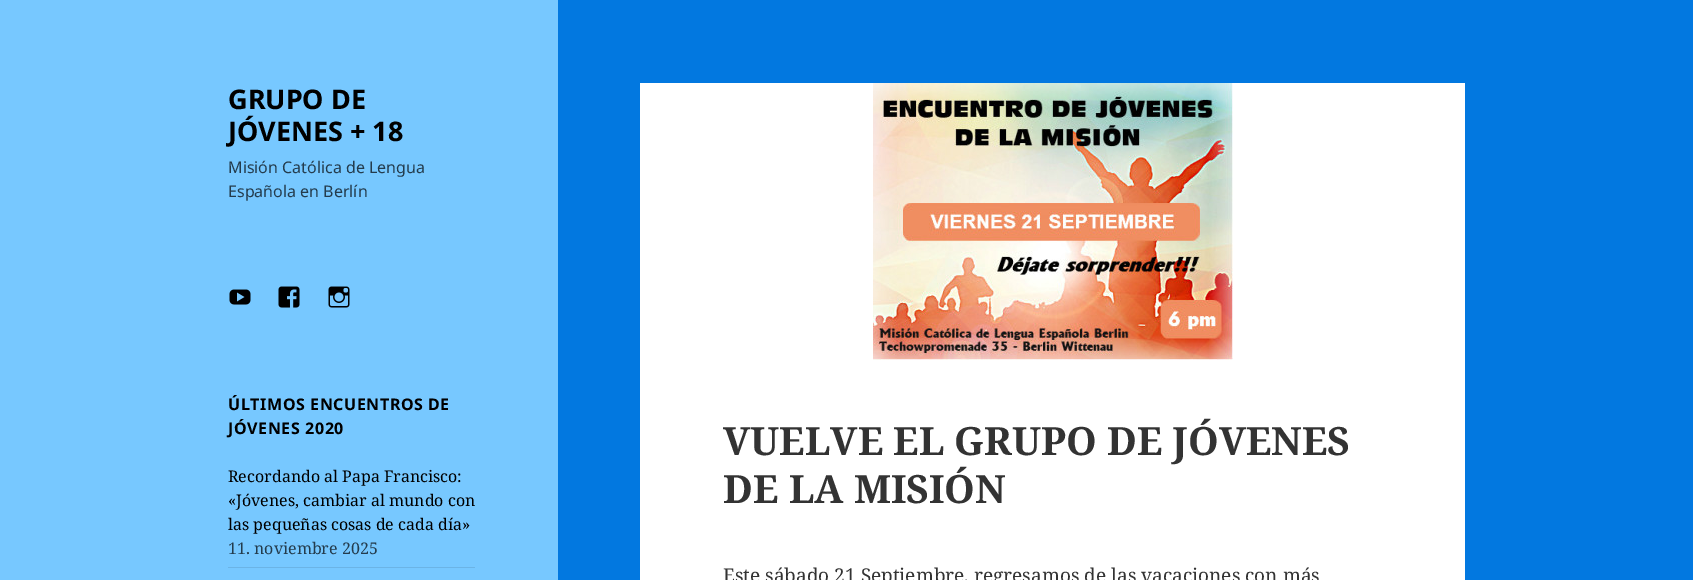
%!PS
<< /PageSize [1693 580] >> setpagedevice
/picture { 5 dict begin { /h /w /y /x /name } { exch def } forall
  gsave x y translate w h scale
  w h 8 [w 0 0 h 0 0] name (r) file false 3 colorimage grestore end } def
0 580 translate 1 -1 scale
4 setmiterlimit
0.008 0.471 0.878 setrgbcolor
0 0 1693 580 rectfill
0.467 0.784 1 setrgbcolor
0 0 558 580 rectfill
/NotoSans-Bold [27 0 0 -27 0 0] selectfont
0 setgray
228 109 moveto (GRUPO DE) show
228 141 moveto (JÓVENES + 18) show
/NotoSans-Regular [16 0 0 -16 0 0] selectfont
0.141 0.235 0.302 setrgbcolor
228 173 moveto (Misión Católica de Lengua) show
228 197 moveto (Española en Berlín) show
(img1.rgb) 229 289 22 16 picture
(img2.rgb) 278 286 22 22 picture
(img3.rgb) 328 286 22 22 picture
/NotoSans-Bold [16 0 0 -16 0 0] selectfont
0 setgray
228 410 moveto 0.6 0 (ÚLTIMOS ENCUENTROS DE) ashow
228 434 moveto 0.6 0 (JÓVENES 2020) ashow
/NotoSerif-Regular [16 0 0 -16 0 0] selectfont
228 482 moveto (Recordando al Papa Francisco:) show
228 506 moveto («Jóvenes, cambiar al mundo con) show
228 530 moveto (las pequeñas cosas de cada día») show
0.141 0.235 0.302 setrgbcolor
228 554 moveto (11. noviembre 2025) show
0.42 0.706 0.902 setrgbcolor
228 567 247 1 rectfill
1 setgray
640 83 825 497 rectfill
(img4.rgb) 873 83 360 277 picture
/NotoSerif-Bold [39 0 0 -39 0 0] selectfont
0.2 setgray
723 455 moveto (VUELVE EL GRUPO DE JÓVENES) show
723 503 moveto (DE LA MISIÓN) show
/NotoSerif-Regular [19 0 0 -19 0 0] selectfont
723 582 moveto (Este sábado 21 Septiembre, regresamos de las vacaciones con más) show
showpage
